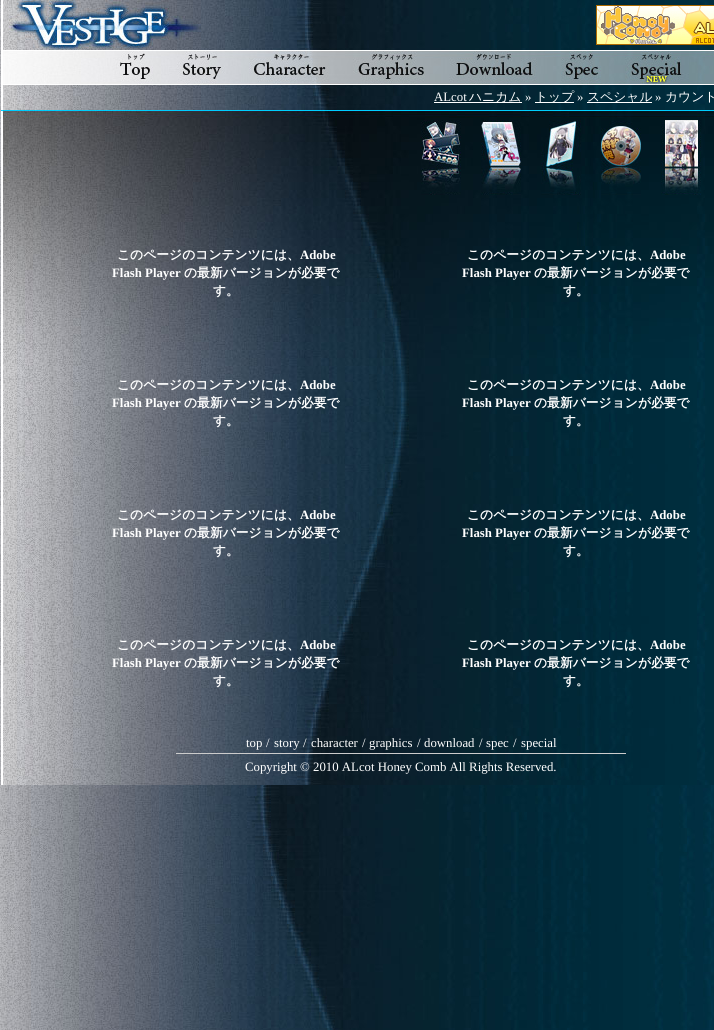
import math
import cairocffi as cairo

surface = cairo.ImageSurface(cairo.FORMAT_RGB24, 714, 1030)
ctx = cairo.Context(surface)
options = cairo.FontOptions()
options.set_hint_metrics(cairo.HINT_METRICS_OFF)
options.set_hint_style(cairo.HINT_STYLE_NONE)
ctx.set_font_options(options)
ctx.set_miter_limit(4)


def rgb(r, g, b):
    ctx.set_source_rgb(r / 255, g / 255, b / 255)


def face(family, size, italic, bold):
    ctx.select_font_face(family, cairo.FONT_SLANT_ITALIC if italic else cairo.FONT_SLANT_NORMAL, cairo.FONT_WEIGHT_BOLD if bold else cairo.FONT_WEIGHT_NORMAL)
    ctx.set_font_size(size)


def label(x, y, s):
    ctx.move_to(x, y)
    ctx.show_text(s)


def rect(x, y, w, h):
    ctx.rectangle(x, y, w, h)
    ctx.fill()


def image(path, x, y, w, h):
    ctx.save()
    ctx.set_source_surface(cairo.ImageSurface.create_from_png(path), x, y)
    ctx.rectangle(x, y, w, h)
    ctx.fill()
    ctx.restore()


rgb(255, 255, 255)
ctx.paint()
image('image0.png', 0, 0, 714, 1030)
image('image1.png', 1, 0, 713, 785)
image('image2.png', 5, 0, 196, 50)
image('image3.png', 596, 5, 118, 40)
image('image4.png', 1, 50, 713, 35)
image('image5.png', 101, 50, 65, 35)
image('image6.png', 166, 50, 71, 35)
image('image7.png', 237, 50, 104, 35)
image('image8.png', 341, 50, 100, 35)
image('image9.png', 441, 50, 108, 35)
image('image10.png', 549, 50, 65, 35)
image('image11.png', 614, 50, 87, 35)
face('Liberation Serif', 12.8, 0, 0)
rgb(255, 255, 255)
label(434, 101, 'ALcot')
rect(434, 102, 88, 1)
face('WenQuanYi Zen Hei Medium', 12.8, 0, 0)
label(469, 101, 'ハニカム')
face('Liberation Serif', 12.8, 0, 0)
label(525, 101, '»')
rect(535, 102, 39, 1)
face('WenQuanYi Zen Hei Medium', 12.8, 0, 0)
label(535, 101, 'トップ')
face('Liberation Serif', 12.8, 0, 0)
label(577, 101, '»')
rect(587, 102, 65, 1)
face('WenQuanYi Zen Hei Medium', 12.8, 0, 0)
label(587, 101, 'スペシャル')
face('Liberation Serif', 12.8, 0, 0)
label(655, 101, '»')
face('WenQuanYi Zen Hei Medium', 12.8, 0, 0)
label(665, 101, 'カウント')
image('image12.png', 1, 110, 713, 320)
image('image13.png', 421, 120, 40, 75)
image('image14.png', 481, 120, 40, 75)
image('image15.png', 541, 120, 40, 75)
image('image16.png', 601, 121, 40, 74)
image('image17.png', 661, 120, 40, 75)
face('WenQuanYi Zen Hei', 12.8, 0, 1)
label(117, 259, 'このページのコンテンツには、')
face('Liberation Serif', 12.8, 0, 1)
label(300, 259, 'Adobe')
label(112, 277, 'Flash Player')
face('WenQuanYi Zen Hei', 12.8, 0, 1)
label(184, 277, 'の最新バージョンが必要で')
label(213, 295, 'す。')
label(467, 259, 'このページのコンテンツには、')
face('Liberation Serif', 12.8, 0, 1)
label(650, 259, 'Adobe')
label(462, 277, 'Flash Player')
face('WenQuanYi Zen Hei', 12.8, 0, 1)
label(534, 277, 'の最新バージョンが必要で')
label(563, 295, 'す。')
label(117, 389, 'このページのコンテンツには、')
face('Liberation Serif', 12.8, 0, 1)
label(300, 389, 'Adobe')
label(112, 407, 'Flash Player')
face('WenQuanYi Zen Hei', 12.8, 0, 1)
label(184, 407, 'の最新バージョンが必要で')
label(213, 425, 'す。')
label(467, 389, 'このページのコンテンツには、')
face('Liberation Serif', 12.8, 0, 1)
label(650, 389, 'Adobe')
label(462, 407, 'Flash Player')
face('WenQuanYi Zen Hei', 12.8, 0, 1)
label(534, 407, 'の最新バージョンが必要で')
label(563, 425, 'す。')
label(117, 519, 'このページのコンテンツには、')
face('Liberation Serif', 12.8, 0, 1)
label(300, 519, 'Adobe')
label(112, 537, 'Flash Player')
face('WenQuanYi Zen Hei', 12.8, 0, 1)
label(184, 537, 'の最新バージョンが必要で')
label(213, 555, 'す。')
label(467, 519, 'このページのコンテンツには、')
face('Liberation Serif', 12.8, 0, 1)
label(650, 519, 'Adobe')
label(462, 537, 'Flash Player')
face('WenQuanYi Zen Hei', 12.8, 0, 1)
label(534, 537, 'の最新バージョンが必要で')
label(563, 555, 'す。')
label(117, 649, 'このページのコンテンツには、')
face('Liberation Serif', 12.8, 0, 1)
label(300, 649, 'Adobe')
label(112, 667, 'Flash Player')
face('WenQuanYi Zen Hei', 12.8, 0, 1)
label(184, 667, 'の最新バージョンが必要で')
label(213, 685, 'す。')
label(467, 649, 'このページのコンテンツには、')
face('Liberation Serif', 12.8, 0, 1)
label(650, 649, 'Adobe')
label(462, 667, 'Flash Player')
face('WenQuanYi Zen Hei', 12.8, 0, 1)
label(534, 667, 'の最新バージョンが必要で')
label(563, 685, 'す。')
face('Liberation Serif', 12.8, 0, 0)
label(246, 747, 'top')
label(266, 747, '/')
label(274, 747, 'story')
label(303, 747, '/')
label(311, 747, 'character')
label(362, 747, '/')
label(369, 747, 'graphics')
label(417, 747, '/')
label(424, 747, 'download')
label(479, 747, '/')
label(486, 747, 'spec')
label(513, 747, '/')
label(521, 747, 'special')
rgb(204, 204, 204)
rect(176, 753, 450, 1)
rgb(255, 255, 255)
label(245, 771, 'Copyright © 2010 ALcot Honey Comb All Rights Reserved.')
surface.write_to_png('render.png')
